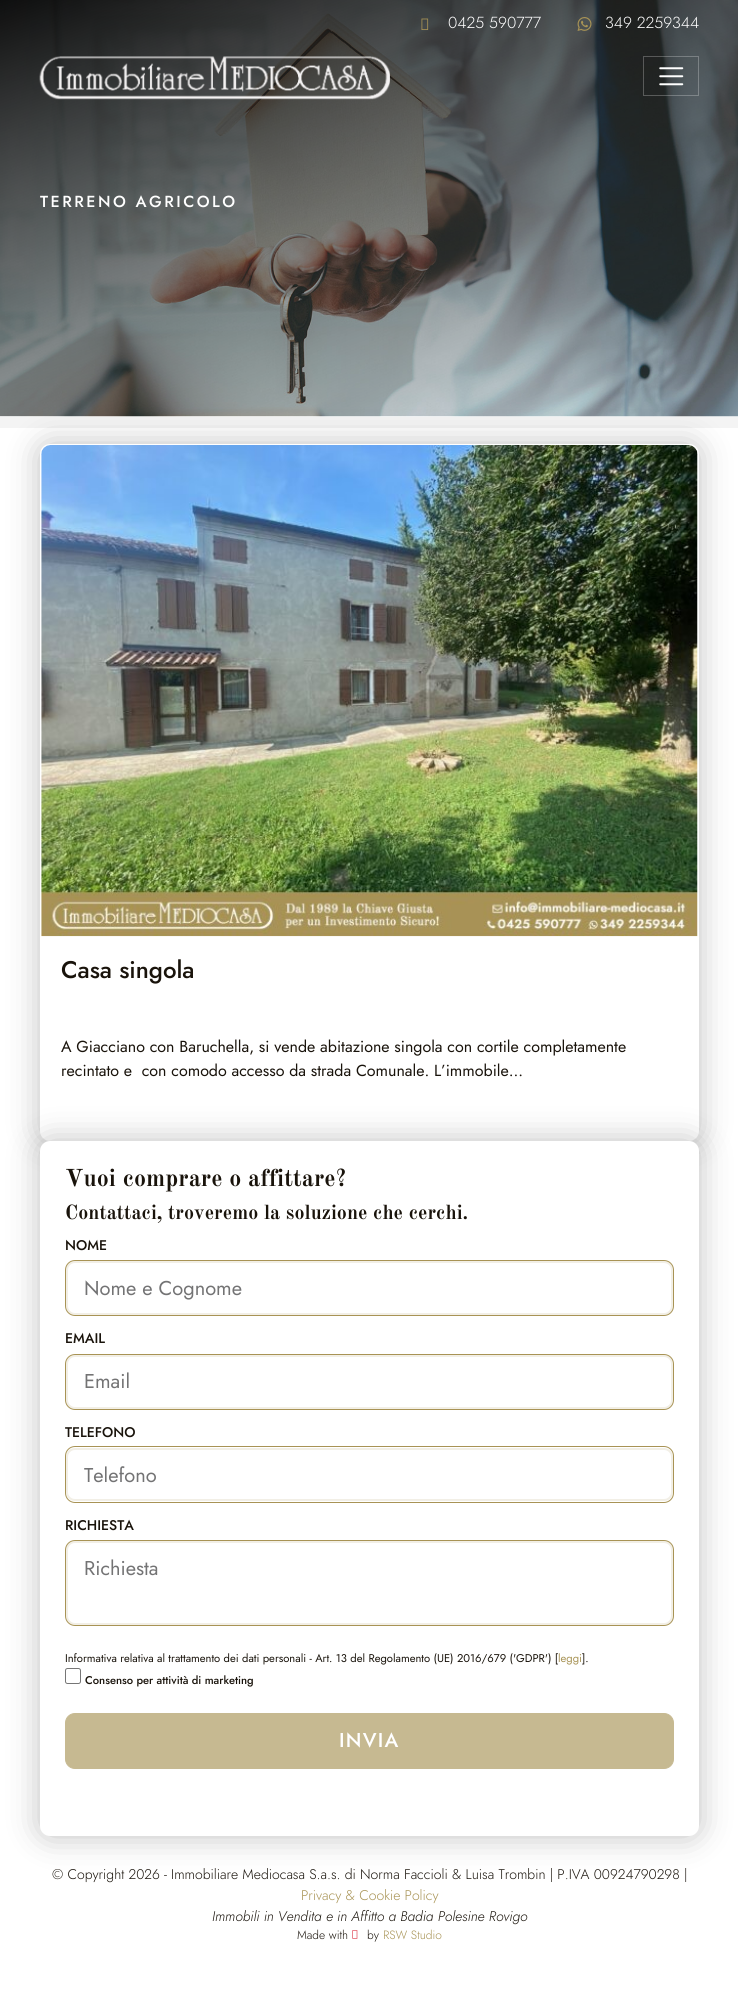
import math
import cairocffi as cairo

surface = cairo.ImageSurface(cairo.FORMAT_RGB24, 738, 1996)
ctx = cairo.Context(surface)
options = cairo.FontOptions()
options.set_hint_metrics(cairo.HINT_METRICS_OFF)
options.set_hint_style(cairo.HINT_STYLE_NONE)
ctx.set_font_options(options)
ctx.set_miter_limit(4)


def rgb(r, g, b):
    ctx.set_source_rgb(r / 255, g / 255, b / 255)


def face(family, size, italic, bold):
    ctx.select_font_face(family, cairo.FONT_SLANT_ITALIC if italic else cairo.FONT_SLANT_NORMAL, cairo.FONT_WEIGHT_BOLD if bold else cairo.FONT_WEIGHT_NORMAL)
    ctx.set_font_size(size)


def label(x, y, s):
    ctx.move_to(x, y)
    ctx.show_text(s)


def tracked(x, y, s, letter, word):
    ctx.move_to(x, y)
    for ch in s:
        ctx.show_text(ch)
        ctx.rel_move_to(letter + word * (ch == ' '), 0)


def rect(x, y, w, h):
    ctx.rectangle(x, y, w, h)
    ctx.fill()


def rrect(x, y, w, h, r):
    ctx.new_sub_path()
    for i, (u, v) in enumerate([(x + w - r, y + h - r), (x + r, y + h - r), (x + r, y + r), (x + w - r, y + r)]):
        ctx.arc(u, v, r, i * math.pi / 2, (i + 1) * math.pi / 2)
    ctx.close_path()


def soft_shadow(x, y, w, h, r, blur, alpha):
    ctx.push_group_with_content(cairo.CONTENT_ALPHA)
    ctx.set_operator(cairo.OPERATOR_SOURCE)
    for i in range(15, -16, -2):
        e = blur * i / 6
        if min(w, h) + 2 * e > 0:
            ctx.set_source_rgba(0, 0, 0, alpha * math.erfc((i - 1) / 8.5) / 2)
            rrect(x - e, y - e, w + 2 * e, h + 2 * e, max(0, min(r + e + blur * .6, min(w, h) / 2 + e)))
            ctx.fill()
    ctx.mask(ctx.pop_group())


def image(path, x, y, w, h):
    ctx.save()
    ctx.set_source_surface(cairo.ImageSurface.create_from_png(path), x, y)
    ctx.rectangle(x, y, w, h)
    ctx.fill()
    ctx.restore()


rgb(255, 255, 255)
ctx.paint()
rgb(244, 244, 244)
rect(0, 416, 738, 12)
image('image4.png', 0, 0, 738, 417)
image('image0.png', 421, 18, 8, 12)
face('Jost Light', 16, 0, 0)
rgb(255, 255, 255)
label(448, 28, '0425 590777')
image('image1.png', 577, 17, 15, 14)
label(605, 28, '349 2259344')
image('image2.png', 39, 56, 351, 44)
ctx.rectangle(643.5, 56.5, 55, 39)
ctx.set_source_rgba(1, 1, 1, 0.25)
ctx.set_line_width(1)
ctx.stroke()
image('image3.png', 659, 67, 25, 19)
face('Jost Medium', 16, 0, 0)
rgb(255, 255, 255)
tracked(40, 207, 'TERRENO AGRICOLO', 2.5, 0)
rgb(0, 0, 0)
soft_shadow(40, 444, 659, 697, 10, 16, 0.25)
rgb(255, 255, 255)
rrect(40, 444, 659, 697, 10)
ctx.fill()
image('image5.png', 41, 445, 657, 492)
face('Jost Medium', 24, 0, 0)
rgb(25, 19, 11)
label(61, 978, 'Casa singola')
face('Jost', 16, 0, 0)
label(61, 1052, 'A Giacciano con Baruchella, si vende abitazione singola con cortile completamente')
label(61, 1076, 'recintato e  con comodo accesso da strada Comunale. L’immobile...')
rgb(0, 0, 0)
soft_shadow(40, 1141, 659, 695, 10, 16, 0.25)
rgb(255, 255, 255)
rrect(40, 1141, 659, 695, 10)
ctx.fill()
face('Old Standard TT', 24, 0, 1)
rgb(25, 19, 11)
label(65, 1186, 'Vuoi comprare o affittare?')
face('Old Standard TT', 20, 0, 1)
label(65, 1219, 'Contattaci, troveremo la soluzione che cerchi.')
face('Jost Medium', 14, 0, 0)
label(65, 1250, 'NOME')
rrect(67, 1262, 605, 52, 8)
rgb(242, 239, 230)
ctx.set_line_width(2)
ctx.stroke()
rrect(65.5, 1260.5, 608, 55, 9.5)
rgb(168, 147, 85)
ctx.set_line_width(1)
ctx.stroke()
face('Jost', 20, 0, 0)
rgb(115, 115, 116)
label(84, 1295, 'Nome e Cognome')
face('Jost Medium', 14, 0, 0)
rgb(25, 19, 11)
label(65, 1343, 'EMAIL')
rrect(67, 1356, 605, 52, 8)
rgb(242, 239, 230)
ctx.set_line_width(2)
ctx.stroke()
rrect(65.5, 1354.5, 608, 55, 9.5)
rgb(168, 147, 85)
ctx.set_line_width(1)
ctx.stroke()
face('Jost', 20, 0, 0)
rgb(115, 115, 116)
label(84, 1388, 'Email')
face('Jost Medium', 14, 0, 0)
rgb(25, 19, 11)
label(65, 1437, 'TELEFONO')
rrect(67, 1449, 605, 51, 8)
rgb(242, 239, 230)
ctx.set_line_width(2)
ctx.stroke()
rrect(65.5, 1446.5, 608, 56, 9.5)
rgb(168, 147, 85)
ctx.set_line_width(1)
ctx.stroke()
face('Jost', 20, 0, 0)
rgb(115, 115, 116)
label(84, 1482, 'Telefono')
face('Jost Medium', 14, 0, 0)
rgb(25, 19, 11)
label(65, 1530, 'RICHIESTA')
rrect(67, 1542, 605, 82, 8)
rgb(242, 239, 230)
ctx.set_line_width(2)
ctx.stroke()
rrect(65.5, 1540.5, 608, 85, 9.5)
rgb(168, 147, 85)
ctx.set_line_width(1)
ctx.stroke()
face('Jost', 20, 0, 0)
rgb(115, 115, 116)
label(84, 1575, 'Richiesta')
face('Jost', 11.2, 0, 0)
rgb(25, 19, 11)
label(65, 1662, 'Informativa relativa al trattamento dei dati personali - Art. 13 del Regolamento (UE) 2016/679 (\'GDPR\') [')
rgb(168, 147, 85)
label(558, 1662, 'leggi')
rgb(25, 19, 11)
label(582, 1662, '].')
rrect(65.5, 1668.5, 15, 15, 2)
rgb(118, 118, 118)
ctx.stroke()
face('Jost Medium', 11.2, 0, 0)
rgb(25, 19, 11)
label(85, 1684, 'Consenso per attività di marketing')
rgb(198, 185, 145)
rrect(65.5, 1713.5, 608, 55, 9.5)
ctx.fill_preserve()
ctx.stroke()
face('Jost Medium', 20, 0, 0)
rgb(255, 255, 255)
tracked(339, 1747, 'INVIA', 1.25, 0)
face('Jost Light', 14, 0, 0)
rgb(25, 19, 11)
label(52, 1879, '© Copyright 2026 - Immobiliare Mediocasa S.a.s. di Norma Faccioli & Luisa Trombin | P.IVA 00924790298 |')
rgb(168, 147, 85)
label(301, 1900, 'Privacy & Cookie Policy')
face('Jost Light', 14, 1, 0)
rgb(25, 19, 11)
label(212, 1921, 'Immobili in Vendita e in Affitto a Badia Polesine Rovigo')
face('Jost Light', 12, 0, 0)
label(297, 1939, 'Made with')
image('image6.png', 352, 1930, 6, 9)
label(367, 1939, 'by')
rgb(168, 147, 85)
label(383, 1939, 'RSW Studio')
surface.write_to_png('render.png')
